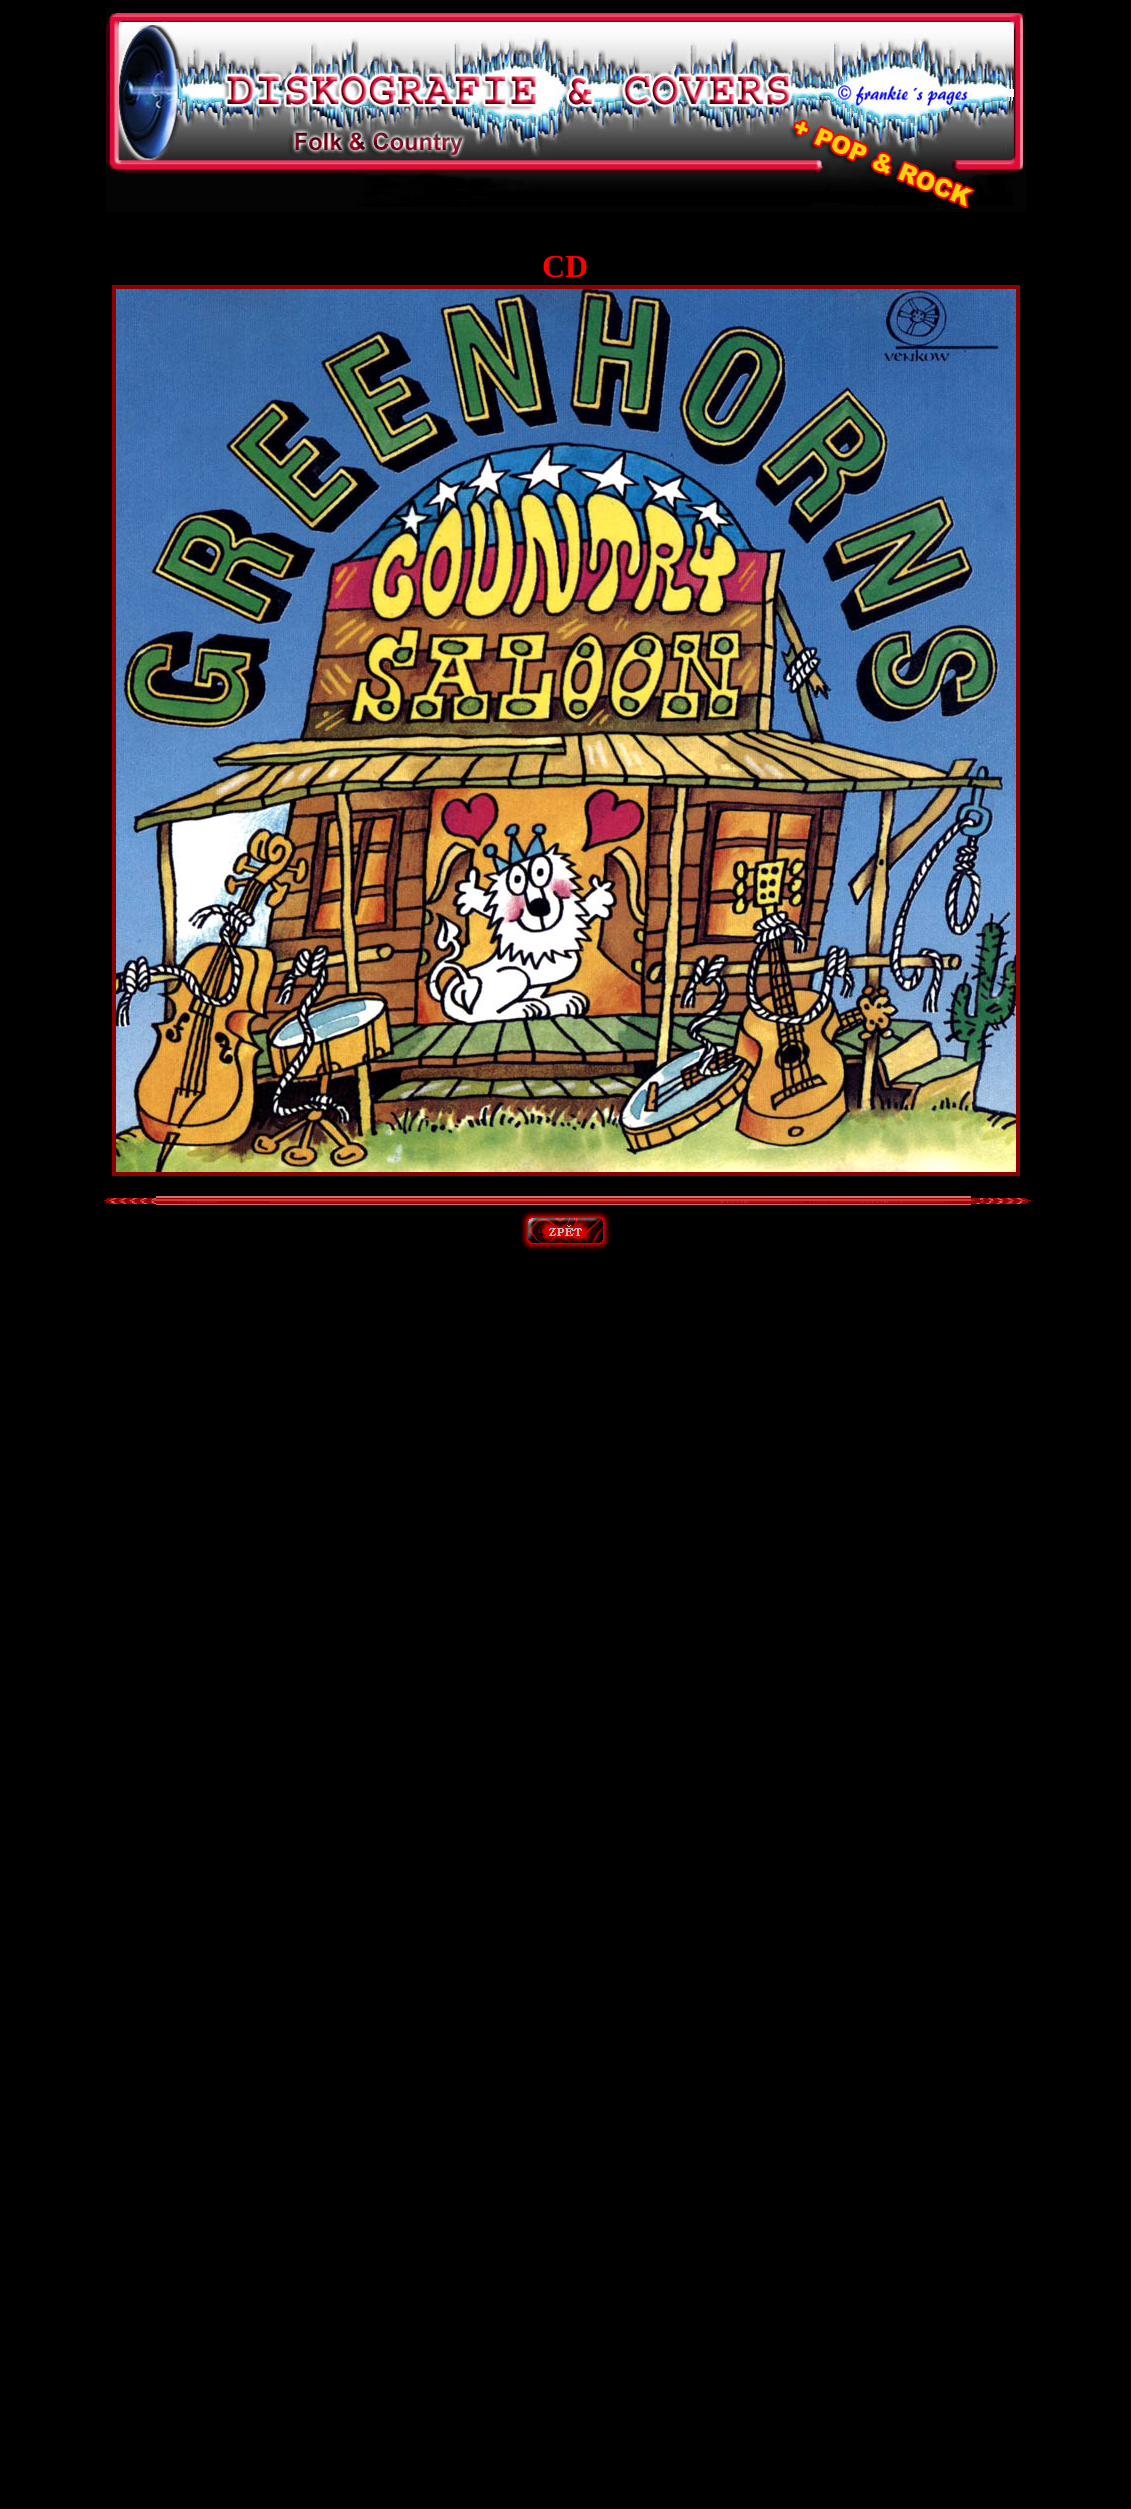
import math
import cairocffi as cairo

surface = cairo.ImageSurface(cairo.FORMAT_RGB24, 1131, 2509)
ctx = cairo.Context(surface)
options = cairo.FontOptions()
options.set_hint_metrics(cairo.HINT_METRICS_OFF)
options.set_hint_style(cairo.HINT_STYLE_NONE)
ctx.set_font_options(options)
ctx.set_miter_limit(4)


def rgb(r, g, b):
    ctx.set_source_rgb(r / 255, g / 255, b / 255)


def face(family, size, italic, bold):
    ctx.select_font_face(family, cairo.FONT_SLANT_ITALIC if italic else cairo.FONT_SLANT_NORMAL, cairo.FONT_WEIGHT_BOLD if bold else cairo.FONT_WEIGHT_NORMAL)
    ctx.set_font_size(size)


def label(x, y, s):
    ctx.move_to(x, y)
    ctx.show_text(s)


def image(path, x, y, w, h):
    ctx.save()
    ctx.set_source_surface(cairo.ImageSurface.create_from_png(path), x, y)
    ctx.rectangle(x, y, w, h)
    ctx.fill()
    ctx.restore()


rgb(0, 0, 0)
ctx.paint()
image('image0.png', 106, 8, 920, 204)
face('Liberation Serif', 32, 0, 1)
rgb(255, 0, 0)
label(542, 277, 'CD')
ctx.rectangle(114, 287, 904, 887)
rgb(139, 0, 0)
ctx.set_line_width(4)
ctx.stroke()
image('image1.png', 116, 289, 900, 883)
image('image2.png', 104, 1196, 927, 9)
image('image3.png', 520, 1210, 91, 41)
surface.write_to_png('render.png')
